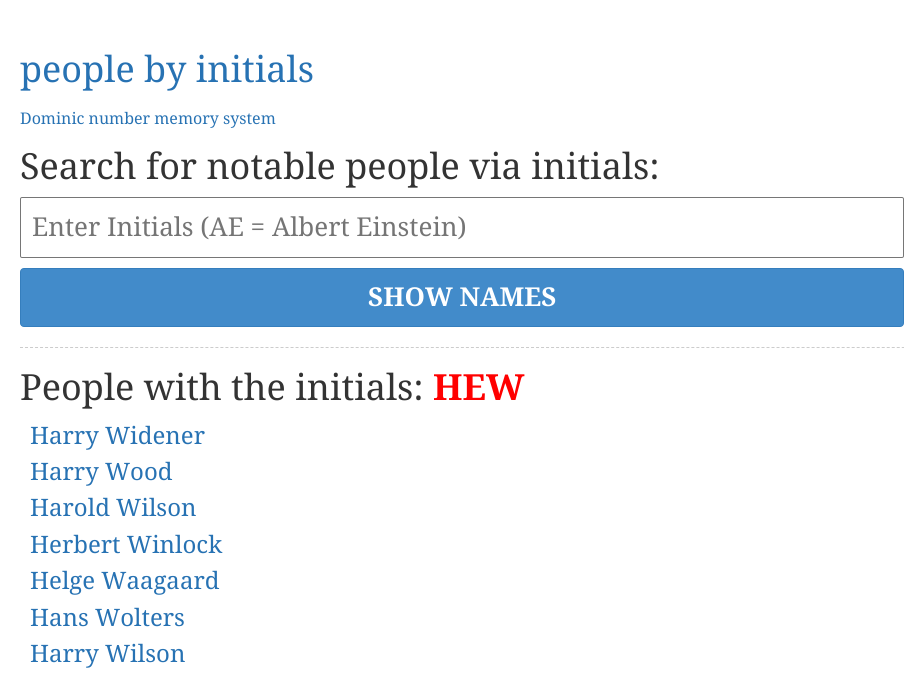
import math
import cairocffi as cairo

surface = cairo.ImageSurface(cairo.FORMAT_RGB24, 924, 678)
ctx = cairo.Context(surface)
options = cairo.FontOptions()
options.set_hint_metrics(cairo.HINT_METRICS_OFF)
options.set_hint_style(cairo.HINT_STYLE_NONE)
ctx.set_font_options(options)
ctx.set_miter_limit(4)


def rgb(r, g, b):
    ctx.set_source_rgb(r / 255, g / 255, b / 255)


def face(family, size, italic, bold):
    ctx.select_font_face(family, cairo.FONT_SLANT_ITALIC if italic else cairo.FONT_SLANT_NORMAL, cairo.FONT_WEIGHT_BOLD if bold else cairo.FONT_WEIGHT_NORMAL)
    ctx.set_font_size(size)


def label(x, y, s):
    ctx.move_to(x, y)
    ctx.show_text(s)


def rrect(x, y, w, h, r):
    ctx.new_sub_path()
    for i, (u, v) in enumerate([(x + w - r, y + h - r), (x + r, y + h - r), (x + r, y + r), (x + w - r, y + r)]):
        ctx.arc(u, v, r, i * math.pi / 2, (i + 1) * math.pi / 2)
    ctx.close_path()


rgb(255, 255, 255)
ctx.paint()
face('Droid Serif', 36, 0, 0)
rgb(39, 114, 179)
label(20, 82, 'people by initials')
face('Droid Serif', 16, 0, 0)
label(20, 124, 'Dominic number memory system')
face('Droid Serif', 36, 0, 0)
rgb(51, 51, 51)
label(20, 179, 'Search for notable people via initials:')
ctx.new_path()
ctx.move_to(20, 347.5)
ctx.line_to(904, 347.5)
rgb(204, 204, 204)
ctx.set_line_width(1)
ctx.set_dash([3, 2.01])
ctx.stroke()
rrect(20.5, 197.5, 883, 60, 1.5)
rgb(118, 118, 118)
ctx.set_dash([])
ctx.stroke()
face('Droid Serif', 26, 0, 0)
rgb(117, 117, 117)
label(32, 236, 'Enter Initials (AE = Albert Einstein)')
rgb(66, 139, 202)
rrect(20.5, 268.5, 883, 58, 3.5)
ctx.fill_preserve()
rgb(53, 126, 189)
ctx.stroke()
face('Droid Serif', 26, 0, 1)
rgb(255, 255, 255)
label(368, 306, 'SHOW NAMES')
face('Droid Serif', 36, 0, 0)
rgb(51, 51, 51)
label(20, 400, 'People with the initials:')
face('Droid Serif', 36, 0, 1)
rgb(255, 0, 0)
label(433, 400, 'HEW')
face('Droid Serif', 24, 0, 0)
rgb(39, 114, 179)
label(30, 444, 'Harry Widener')
label(30, 480, 'Harry Wood')
label(30, 516, 'Harold Wilson')
label(30, 553, 'Herbert Winlock')
label(30, 589, 'Helge Waagaard')
label(30, 626, 'Hans Wolters')
label(30, 662, 'Harry Wilson')
surface.write_to_png('render.png')
